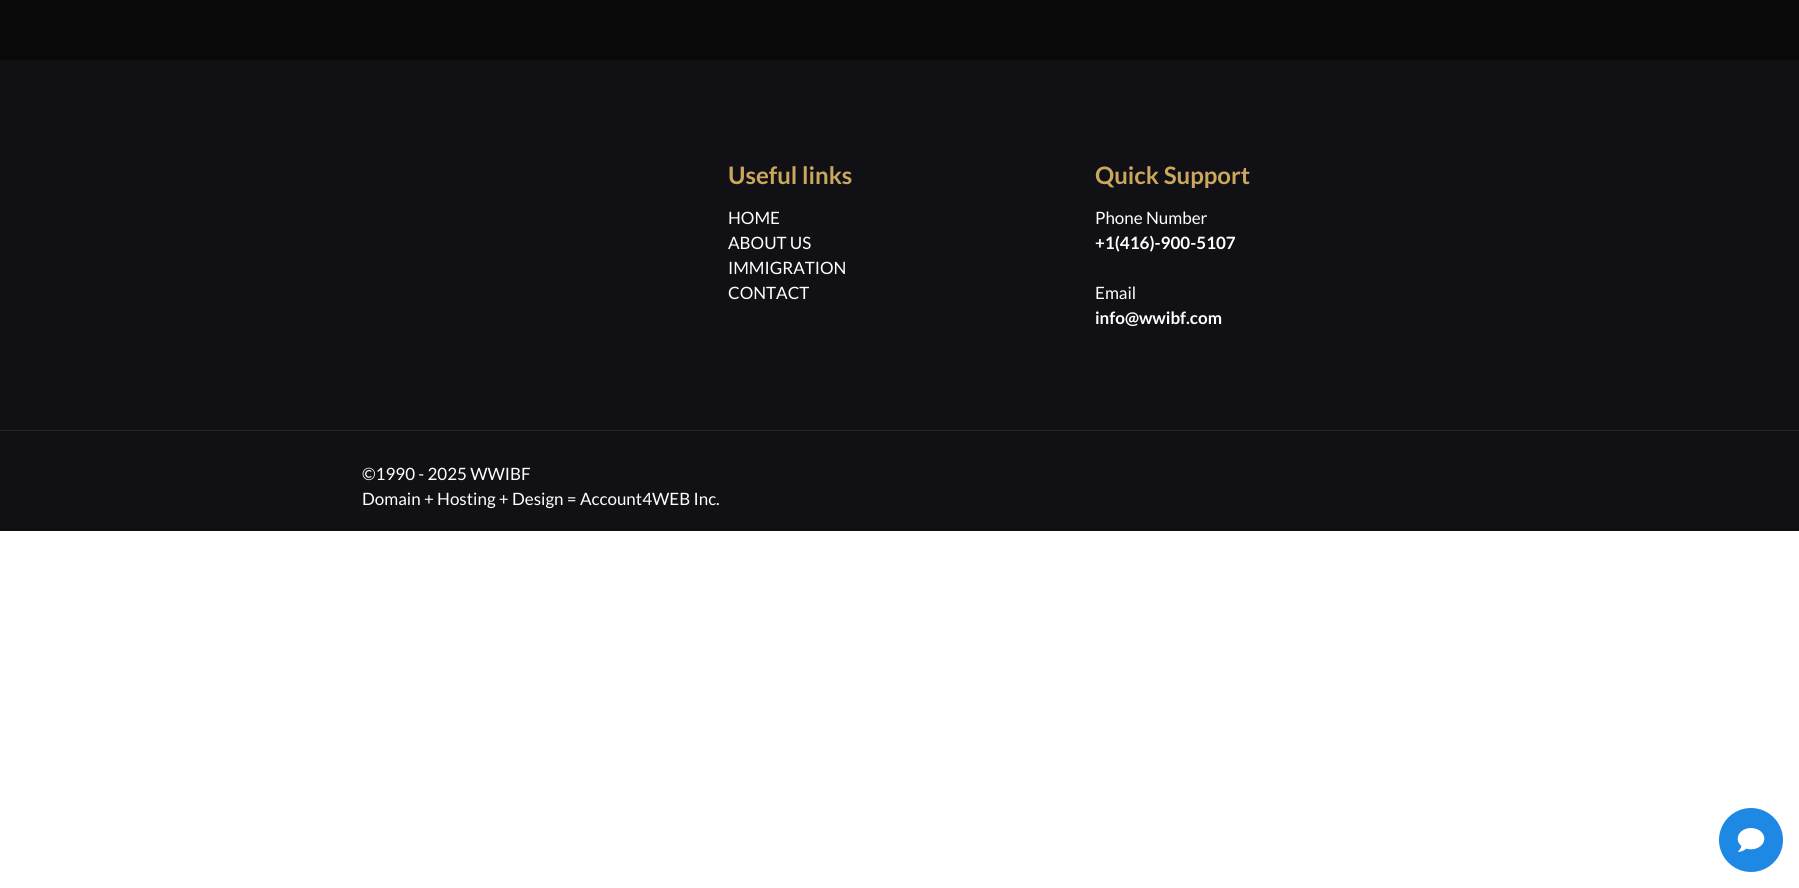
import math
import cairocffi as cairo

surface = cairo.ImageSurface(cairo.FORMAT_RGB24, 1799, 888)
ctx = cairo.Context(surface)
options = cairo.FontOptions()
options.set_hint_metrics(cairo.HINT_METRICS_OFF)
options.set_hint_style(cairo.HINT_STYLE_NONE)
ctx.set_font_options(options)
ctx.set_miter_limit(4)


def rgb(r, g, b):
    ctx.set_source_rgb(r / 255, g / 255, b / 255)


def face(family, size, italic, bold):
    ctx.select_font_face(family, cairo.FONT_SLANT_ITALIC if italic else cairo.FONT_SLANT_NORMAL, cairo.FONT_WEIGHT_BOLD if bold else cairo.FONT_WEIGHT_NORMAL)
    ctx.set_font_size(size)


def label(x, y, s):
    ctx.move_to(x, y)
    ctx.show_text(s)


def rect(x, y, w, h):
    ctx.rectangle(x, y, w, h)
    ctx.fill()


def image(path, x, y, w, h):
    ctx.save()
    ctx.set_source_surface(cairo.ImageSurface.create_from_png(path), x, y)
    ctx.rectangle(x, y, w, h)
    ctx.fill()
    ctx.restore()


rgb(255, 255, 255)
ctx.paint()
rgb(9, 9, 9)
rect(0, 0, 1799, 60)
rgb(16, 16, 21)
rect(0, 60, 1799, 471)
face('Lato', 24, 0, 1)
rgb(202, 167, 93)
label(728, 184, 'Useful links')
face('Lato', 17, 0, 0)
rgb(255, 255, 255)
label(728, 224, 'HOME')
label(728, 249, 'ABOUT US')
label(728, 274, 'IMMIGRATION')
label(728, 299, 'CONTACT')
face('Lato', 24, 0, 1)
rgb(202, 167, 93)
label(1095, 184, 'Quick Support')
face('Lato', 17, 0, 0)
rgb(255, 255, 255)
label(1095, 224, 'Phone Number')
face('Lato', 17, 0, 1)
label(1095, 249, '+1(416)-900-5107')
face('Lato', 17, 0, 0)
label(1095, 299, 'Email')
face('Lato', 17, 0, 1)
label(1095, 324, 'info@wwibf.com')
rgb(40, 40, 44)
rect(0, 430, 1799, 1)
face('Lato', 17, 0, 0)
rgb(255, 255, 255)
label(362, 480, '©1990 - 2025 WWIBF')
label(362, 505, 'Domain + Hosting + Design = Account4WEB Inc.')
rgb(30, 136, 229)
ctx.new_path()
ctx.arc(1751, 840, 32, 0, 2 * math.pi)
ctx.fill()
image('image0.png', 1737, 828, 28, 24)
surface.write_to_png('render.png')
